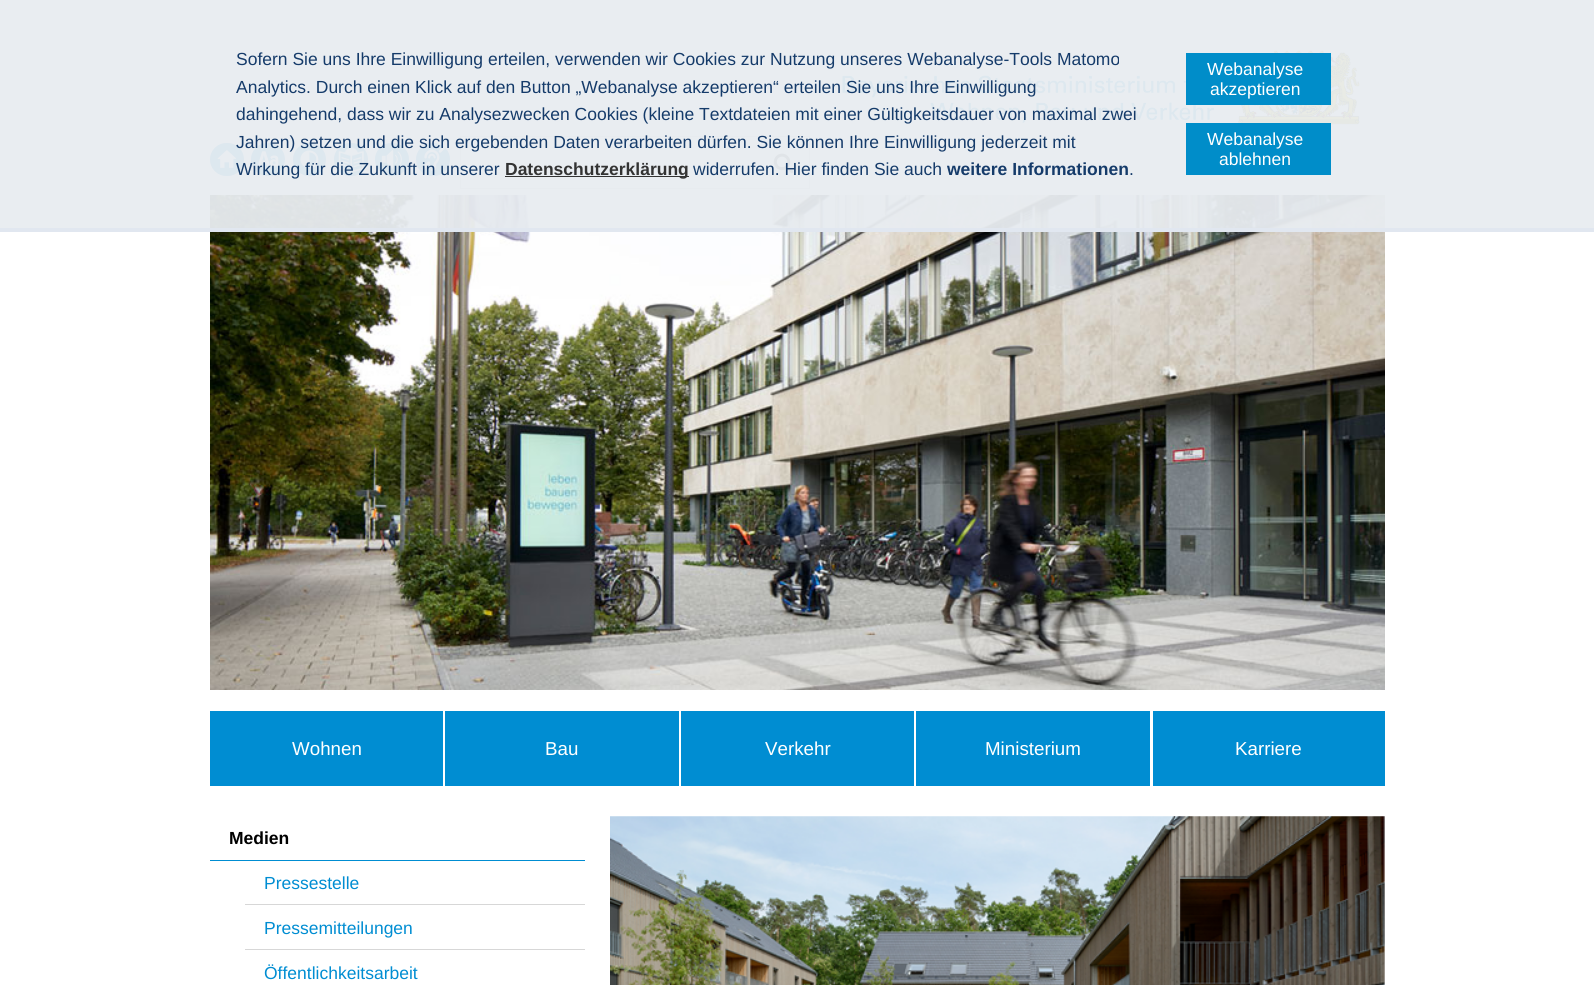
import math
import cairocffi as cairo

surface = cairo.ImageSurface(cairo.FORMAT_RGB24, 1594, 985)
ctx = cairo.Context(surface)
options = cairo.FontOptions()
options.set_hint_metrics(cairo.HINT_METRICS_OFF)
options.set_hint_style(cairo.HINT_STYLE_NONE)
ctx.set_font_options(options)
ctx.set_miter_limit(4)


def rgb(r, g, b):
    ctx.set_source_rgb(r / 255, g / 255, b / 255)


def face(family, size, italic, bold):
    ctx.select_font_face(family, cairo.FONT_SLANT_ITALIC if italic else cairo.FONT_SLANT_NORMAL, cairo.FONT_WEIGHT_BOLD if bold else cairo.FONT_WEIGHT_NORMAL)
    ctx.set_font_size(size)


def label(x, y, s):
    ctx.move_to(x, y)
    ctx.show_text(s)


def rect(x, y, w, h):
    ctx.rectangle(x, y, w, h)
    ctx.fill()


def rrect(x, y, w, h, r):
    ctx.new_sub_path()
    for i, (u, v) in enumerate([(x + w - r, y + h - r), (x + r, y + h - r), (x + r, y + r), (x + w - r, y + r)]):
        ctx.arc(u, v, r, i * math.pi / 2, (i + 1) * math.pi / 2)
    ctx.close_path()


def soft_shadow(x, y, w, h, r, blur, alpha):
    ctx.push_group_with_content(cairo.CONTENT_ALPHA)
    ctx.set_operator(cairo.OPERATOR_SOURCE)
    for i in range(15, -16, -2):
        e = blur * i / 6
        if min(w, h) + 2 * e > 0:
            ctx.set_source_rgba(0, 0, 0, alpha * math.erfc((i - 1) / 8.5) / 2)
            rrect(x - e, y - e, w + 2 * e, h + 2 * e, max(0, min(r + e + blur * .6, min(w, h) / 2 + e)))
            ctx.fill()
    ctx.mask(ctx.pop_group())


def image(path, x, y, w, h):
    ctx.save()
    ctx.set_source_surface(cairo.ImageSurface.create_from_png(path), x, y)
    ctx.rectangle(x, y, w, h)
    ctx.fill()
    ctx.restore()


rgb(255, 255, 255)
ctx.paint()
image('image0.png', 842, 50, 518, 75)
rgb(0, 141, 210)
rrect(210, 143, 34, 33, 16.5)
ctx.fill()
image('image6.png', 217, 150, 19, 18)
image('image8.png', 210, 195, 1175, 495)
rgb(255, 255, 255)
soft_shadow(251, 143, 34, 33, 16.5, 7.5, 0.7)
rgb(0, 141, 210)
rrect(251, 143, 34, 33, 16.5)
ctx.fill()
image('image1.png', 257, 151, 22, 16)
rgb(255, 255, 255)
soft_shadow(293, 143, 33, 33, 16.5, 7.5, 0.7)
rgb(0, 141, 210)
ctx.arc(309.5, 159.5, 16.5, 0, 2 * math.pi)
ctx.fill()
image('image2.png', 300, 150, 19, 19)
rgb(255, 255, 255)
soft_shadow(334, 143, 34, 33, 16.5, 7.5, 0.7)
rgb(0, 141, 210)
rrect(334, 143, 34, 33, 16.5)
ctx.fill()
image('image3.png', 338, 147, 26, 26)
rgb(255, 255, 255)
soft_shadow(375, 143, 34, 33, 16.5, 7.5, 0.7)
rgb(0, 141, 210)
rrect(375, 143, 34, 33, 16.5)
ctx.fill()
image('image4.png', 381, 150, 21, 19)
rrect(416, 143, 34, 33, 16.5)
ctx.fill()
image('image5.png', 421, 146, 24, 26)
ctx.rectangle(460.5, 136.5, 349, 52)
rgb(215, 215, 215)
ctx.set_line_width(1)
ctx.stroke()
image('image7.png', 773, 153, 21, 21)
ctx.set_source_rgba(0.91, 0.929, 0.945, 0.95)
rect(0, 0, 1594, 228)
rgb(225, 231, 240)
rect(0, 228, 1594, 4)
face('Liberation Sans', 17.5, 0, 0)
rgb(21, 59, 106)
label(236, 65, 'Sofern Sie uns Ihre Einwilligung erteilen, verwenden wir Cookies zur Nutzung unseres Webanalyse-Tools Matomo')
label(236, 93, 'Analytics. Durch einen Klick auf den Button „Webanalyse akzeptieren“ erteilen Sie uns Ihre Einwilligung')
label(236, 120, 'dahingehend, dass wir zu Analysezwecken Cookies (kleine Textdateien mit einer Gültigkeitsdauer von maximal zwei')
label(236, 148, 'Jahren) setzen und die sich ergebenden Daten verarbeiten dürfen. Sie können Ihre Einwilligung jederzeit mit')
label(236, 175, 'Wirkung für die Zukunft in unserer')
rgb(51, 51, 51)
rect(505, 176, 184, 1)
face('Liberation Sans', 17.5, 0, 1)
label(505, 175, 'Datenschutzerklärung')
face('Liberation Sans', 17.5, 0, 0)
rgb(21, 59, 106)
label(693, 175, 'widerrufen. Hier finden Sie auch')
face('Liberation Sans', 17.5, 0, 1)
label(947, 175, 'weitere Informationen')
face('Liberation Sans', 17.5, 0, 0)
label(1129, 175, '.')
rgb(0, 141, 201)
rect(1186, 53, 145, 52)
rgb(255, 255, 255)
label(1207, 75, 'Webanalyse')
label(1210, 95, 'akzeptieren')
rgb(0, 141, 201)
rect(1186, 123, 145, 52)
rgb(255, 255, 255)
label(1207, 145, 'Webanalyse')
label(1219, 165, 'ablehnen')
rgb(0, 141, 210)
rect(210, 711, 233, 75)
face('Liberation Sans', 18.75, 0, 0)
rgb(255, 255, 255)
label(292, 755, 'Wohnen')
rgb(0, 141, 210)
rect(445, 711, 234, 75)
rgb(255, 255, 255)
label(545, 755, 'Bau')
rgb(0, 141, 210)
rect(681, 711, 233, 75)
rgb(255, 255, 255)
label(765, 755, 'Verkehr')
rgb(0, 141, 210)
rect(916, 711, 234, 75)
rgb(255, 255, 255)
label(985, 755, 'Ministerium')
rgb(0, 141, 210)
rect(1153, 711, 232, 75)
rgb(255, 255, 255)
label(1235, 755, 'Karriere')
rgb(0, 141, 210)
rect(210, 860, 375, 1)
face('Liberation Sans', 17.5, 0, 1)
rgb(0, 0, 0)
label(229, 844, 'Medien')
rgb(215, 215, 215)
rect(245, 904, 340, 1)
face('Liberation Sans', 17.5, 0, 0)
rgb(0, 141, 210)
label(264, 889, 'Pressestelle')
rgb(215, 215, 215)
rect(245, 949, 340, 1)
rgb(0, 141, 210)
label(264, 934, 'Pressemitteilungen')
label(264, 979, 'Öffentlichkeitsarbeit')
image('image9.png', 610, 816, 775, 169)
surface.write_to_png('render.png')
